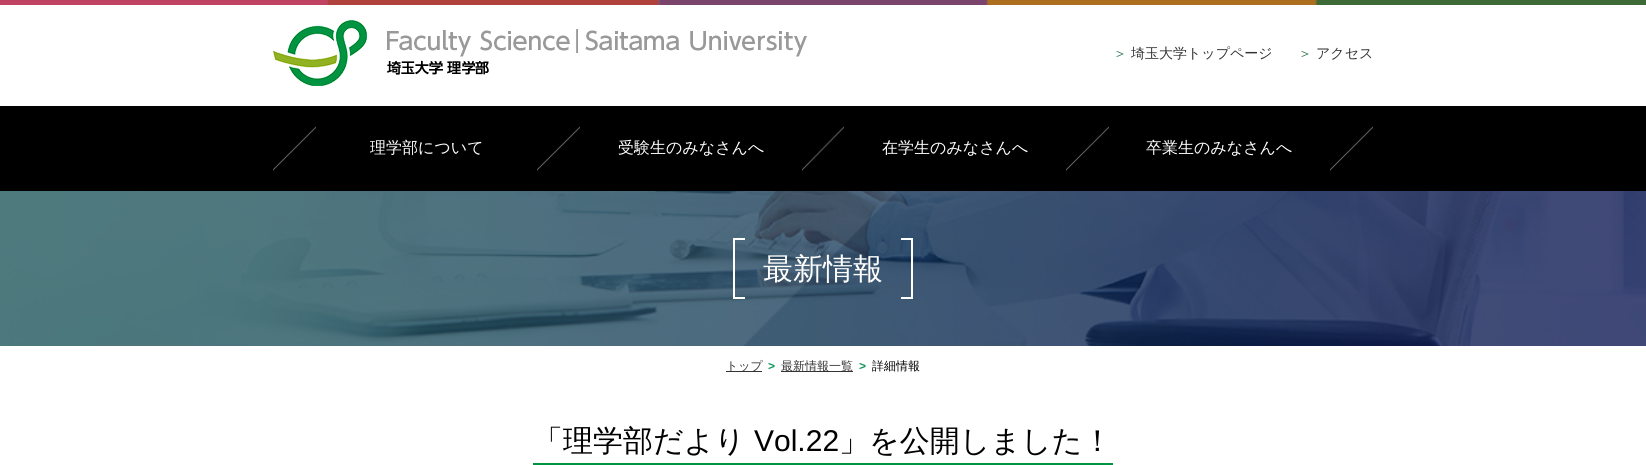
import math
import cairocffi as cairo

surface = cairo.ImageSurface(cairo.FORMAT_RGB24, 1646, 465)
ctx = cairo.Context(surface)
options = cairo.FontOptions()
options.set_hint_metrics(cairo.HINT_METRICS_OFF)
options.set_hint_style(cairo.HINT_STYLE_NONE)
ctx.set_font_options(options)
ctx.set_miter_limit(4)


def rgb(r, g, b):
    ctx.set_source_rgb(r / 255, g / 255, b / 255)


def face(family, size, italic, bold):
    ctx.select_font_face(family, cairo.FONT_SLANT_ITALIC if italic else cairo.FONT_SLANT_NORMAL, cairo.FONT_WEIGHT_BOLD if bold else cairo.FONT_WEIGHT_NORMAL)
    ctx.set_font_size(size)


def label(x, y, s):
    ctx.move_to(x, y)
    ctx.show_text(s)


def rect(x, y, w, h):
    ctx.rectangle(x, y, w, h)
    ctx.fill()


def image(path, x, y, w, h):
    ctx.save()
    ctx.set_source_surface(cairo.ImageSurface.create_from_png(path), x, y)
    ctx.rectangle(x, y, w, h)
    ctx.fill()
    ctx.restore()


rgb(255, 255, 255)
ctx.paint()
image('image0.png', 0, 0, 1646, 5)
image('image1.png', 273, 20, 534, 66)
face('WenQuanYi Zen Hei Medium', 14, 0, 0)
rgb(47, 120, 80)
label(1113, 58, '＞')
rgb(51, 51, 51)
label(1131, 58, '埼玉大学トップページ')
rgb(47, 120, 80)
label(1298, 58, '＞')
rgb(51, 51, 51)
label(1316, 58, 'アクセス')
rgb(0, 0, 0)
rect(0, 106, 1646, 85)
image('image2.png', 273, 126, 43, 45)
face('WenQuanYi Zen Hei Medium', 16, 0, 0)
rgb(255, 255, 255)
label(370, 153, '理学部について')
image('image2.png', 537, 126, 43, 45)
label(618, 153, '受験生のみなさんへ')
image('image3.png', 802, 126, 42, 45)
label(882, 153, '在学生のみなさんへ')
image('image2.png', 1066, 126, 43, 45)
label(1146, 153, '卒業生のみなさんへ')
image('image2.png', 1330, 126, 43, 45)
image('image4.png', 0, 191, 1646, 155)
image('image5.png', 733, 238, 180, 61)
face('WenQuanYi Zen Hei Medium', 30, 0, 0)
label(763, 279, '最新情報')
rgb(51, 51, 51)
rect(726, 371, 36, 1)
face('WenQuanYi Zen Hei Medium', 12, 0, 0)
label(726, 370, 'トップ')
face('Liberation Sans', 12, 0, 1)
rgb(11, 149, 82)
label(768, 370, '>')
rgb(51, 51, 51)
rect(781, 371, 72, 1)
face('WenQuanYi Zen Hei Medium', 12, 0, 0)
label(781, 370, '最新情報一覧')
face('Liberation Sans', 12, 0, 1)
rgb(11, 149, 82)
label(859, 370, '>')
face('WenQuanYi Zen Hei Medium', 12, 0, 0)
rgb(0, 0, 0)
label(872, 370, '詳細情報')
rgb(0, 148, 66)
rect(533, 463, 580, 2)
face('WenQuanYi Zen Hei Medium', 30, 0, 0)
rgb(0, 0, 0)
label(533, 451, '「理学部だより')
face('Liberation Sans', 30, 0, 0)
label(754, 451, 'Vol.22')
face('WenQuanYi Zen Hei Medium', 30, 0, 0)
label(839, 451, '」を公開しました！')
surface.write_to_png('render.png')
